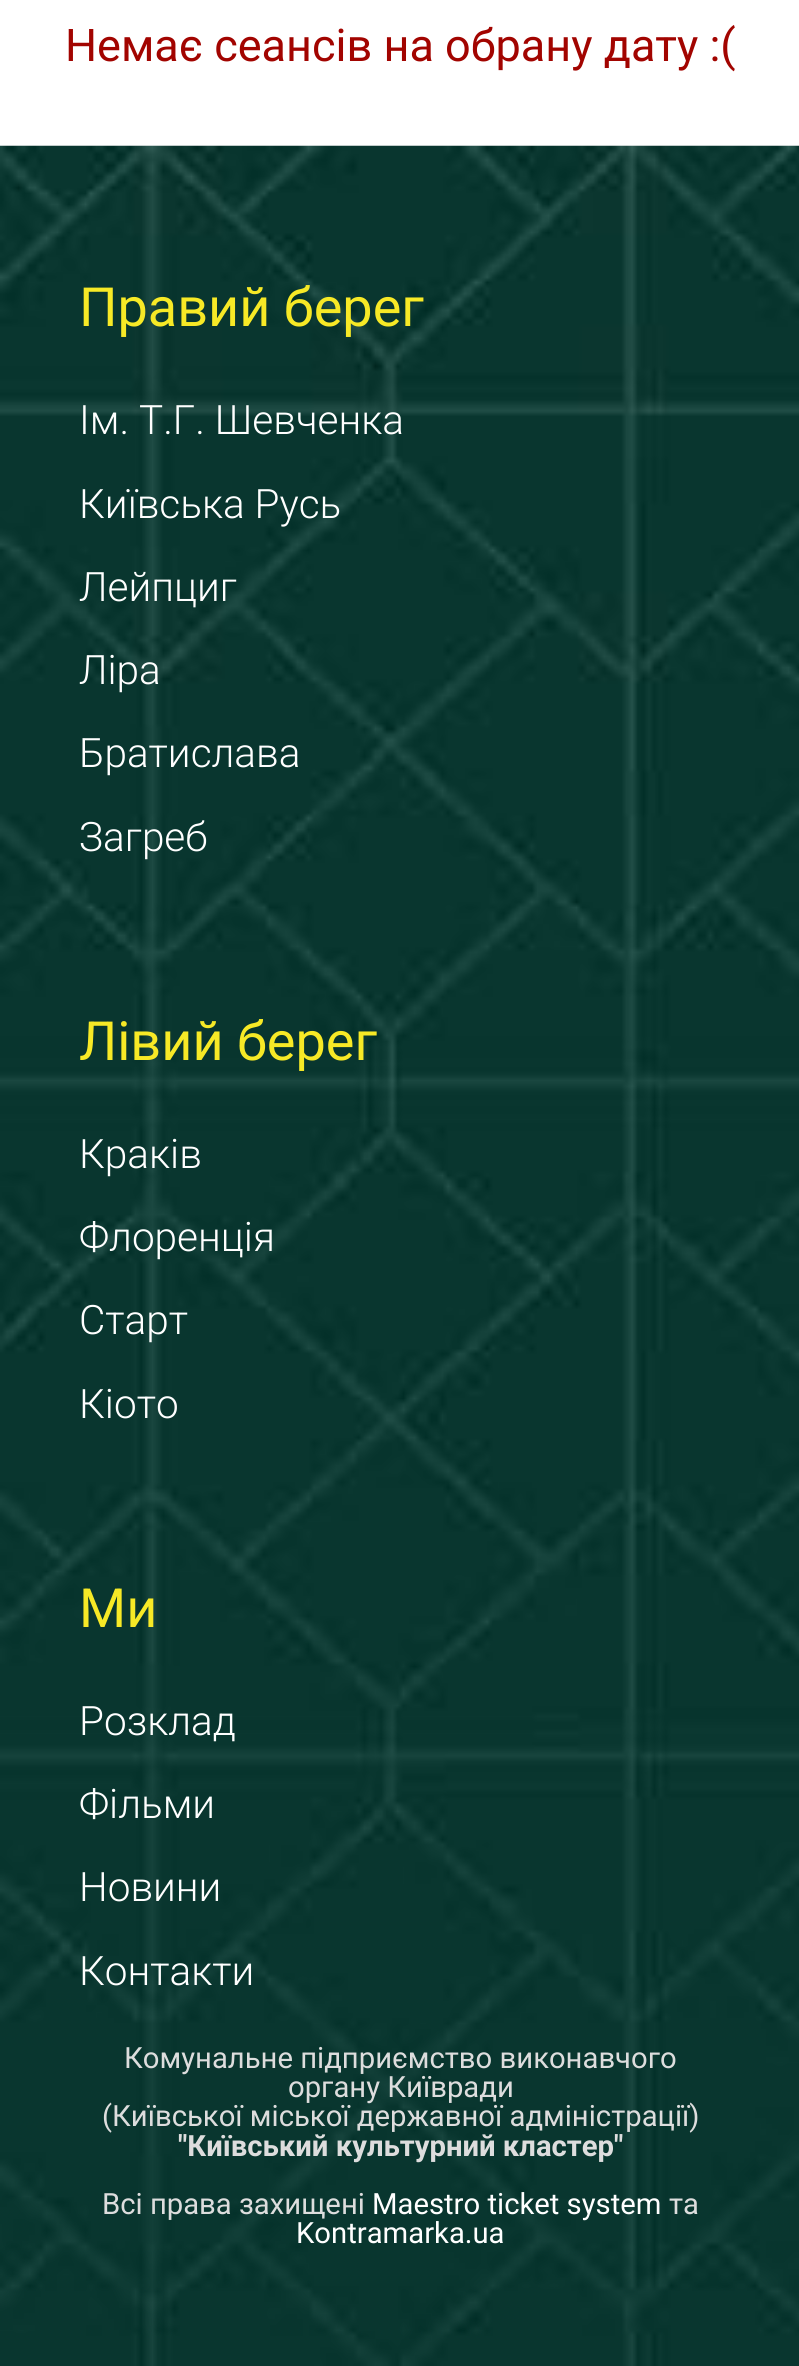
import math
import cairocffi as cairo

surface = cairo.ImageSurface(cairo.FORMAT_RGB24, 799, 2366)
ctx = cairo.Context(surface)
options = cairo.FontOptions()
options.set_hint_metrics(cairo.HINT_METRICS_OFF)
options.set_hint_style(cairo.HINT_STYLE_NONE)
ctx.set_font_options(options)
ctx.set_miter_limit(4)


def rgb(r, g, b):
    ctx.set_source_rgb(r / 255, g / 255, b / 255)


def face(family, size, italic, bold):
    ctx.select_font_face(family, cairo.FONT_SLANT_ITALIC if italic else cairo.FONT_SLANT_NORMAL, cairo.FONT_WEIGHT_BOLD if bold else cairo.FONT_WEIGHT_NORMAL)
    ctx.set_font_size(size)


def label(x, y, s):
    ctx.move_to(x, y)
    ctx.show_text(s)


def image(path, x, y, w, h):
    ctx.save()
    ctx.set_source_surface(cairo.ImageSurface.create_from_png(path), x, y)
    ctx.rectangle(x, y, w, h)
    ctx.fill()
    ctx.restore()


rgb(255, 255, 255)
ctx.paint()
face('Roboto', 45, 0, 0)
rgb(162, 4, 0)
label(65, 61, 'Немає сеансів на обрану дату :(')
image('image0.png', 0, 145, 799, 2221)
face('Roboto', 54, 0, 0)
rgb(247, 233, 38)
label(79, 326, 'Правий берег')
face('Roboto Light', 40.5, 0, 0)
rgb(255, 255, 255)
label(79, 434, 'Ім. Т.Г. Шевченка')
label(79, 518, 'Київська Русь')
label(79, 601, 'Лейпциг')
label(79, 684, 'Ліра')
label(79, 767, 'Братислава')
label(79, 851, 'Загреб')
face('Roboto', 54, 0, 0)
rgb(247, 233, 38)
label(79, 1060, 'Лівий берег')
face('Roboto Light', 40.5, 0, 0)
rgb(255, 255, 255)
label(79, 1168, 'Краків')
label(79, 1251, 'Флоренція')
label(79, 1334, 'Старт')
label(79, 1418, 'Кіото')
face('Roboto', 54, 0, 0)
rgb(247, 233, 38)
label(79, 1627, 'Ми')
face('Roboto Light', 40.5, 0, 0)
rgb(255, 255, 255)
label(79, 1735, 'Розклад')
label(79, 1818, 'Фільми')
label(79, 1901, 'Новини')
label(79, 1985, 'Контакти')
face('Roboto', 29.25, 0, 0)
rgb(221, 221, 221)
label(124, 2068, 'Комунальне підприємство виконавчого')
label(288, 2097, 'органу Київради')
label(102, 2126, '(Київської міської державної адміністрації)')
face('Roboto', 29.25, 0, 1)
label(178, 2156, '"Київський культурний кластер"')
face('Roboto', 29.25, 0, 0)
label(102, 2214, 'Всi права захищенi')
rgb(255, 255, 255)
label(372, 2214, 'Maestro ticket system')
rgb(221, 221, 221)
label(669, 2214, 'та')
rgb(255, 255, 255)
label(296, 2243, 'Kontramarka.ua')
surface.write_to_png('render.png')
